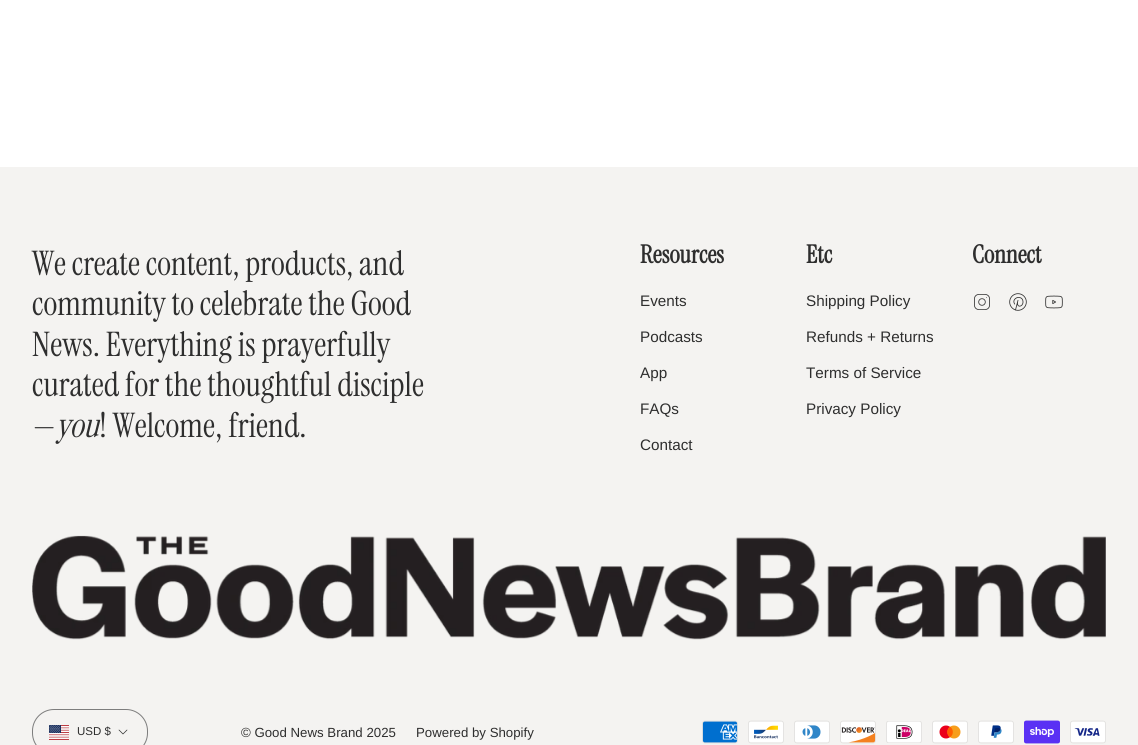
import math
import cairocffi as cairo

surface = cairo.ImageSurface(cairo.FORMAT_RGB24, 1138, 745)
ctx = cairo.Context(surface)
options = cairo.FontOptions()
options.set_hint_metrics(cairo.HINT_METRICS_OFF)
options.set_hint_style(cairo.HINT_STYLE_NONE)
ctx.set_font_options(options)
ctx.set_miter_limit(4)


def rgb(r, g, b):
    ctx.set_source_rgb(r / 255, g / 255, b / 255)


def face(family, size, italic, bold):
    ctx.select_font_face(family, cairo.FONT_SLANT_ITALIC if italic else cairo.FONT_SLANT_NORMAL, cairo.FONT_WEIGHT_BOLD if bold else cairo.FONT_WEIGHT_NORMAL)
    ctx.set_font_size(size)


def label(x, y, s):
    ctx.move_to(x, y)
    ctx.show_text(s)


def rect(x, y, w, h):
    ctx.rectangle(x, y, w, h)
    ctx.fill()


def rrect(x, y, w, h, r):
    ctx.new_sub_path()
    for i, (u, v) in enumerate([(x + w - r, y + h - r), (x + r, y + h - r), (x + r, y + r), (x + w - r, y + r)]):
        ctx.arc(u, v, r, i * math.pi / 2, (i + 1) * math.pi / 2)
    ctx.close_path()


def image(path, x, y, w, h):
    ctx.save()
    ctx.set_source_surface(cairo.ImageSurface.create_from_png(path), x, y)
    ctx.rectangle(x, y, w, h)
    ctx.fill()
    ctx.restore()


rgb(255, 255, 255)
ctx.paint()
rgb(244, 243, 241)
rect(0, 167, 1138, 578)
face('Instrument Serif', 33.75, 0, 0)
rgb(46, 46, 46)
label(32, 275, 'We create content, products, and')
label(32, 315, 'community to celebrate the Good')
label(32, 356, 'News. Everything is prayerfully')
label(32, 396, 'curated for the thoughtful disciple')
label(32, 437, '—')
face('Instrument Serif', 33.75, 1, 0)
label(56, 437, 'you')
face('Instrument Serif', 33.75, 0, 0)
label(99, 437, '! Welcome, friend.')
face('Instrument Serif', 25, 0, 1)
label(640, 263, 'Resources')
face('Liberation Sans', 15.25, 0, 0)
label(640, 306, 'Events')
label(640, 342, 'Podcasts')
label(640, 378, 'App')
label(640, 414, 'FAQs')
label(640, 450, 'Contact')
face('Instrument Serif', 25, 0, 1)
label(806, 263, 'Etc')
face('Liberation Sans', 15.25, 0, 0)
label(806, 306, 'Shipping Policy')
label(806, 342, 'Refunds + Returns')
label(806, 378, 'Terms of Service')
label(806, 414, 'Privacy Policy')
face('Instrument Serif', 25, 0, 1)
label(972, 263, 'Connect')
image('image0.png', 974, 294, 16, 16)
image('image1.png', 1009, 293, 18, 18)
image('image2.png', 1045, 295, 18, 14)
image('image3.png', 32, 535, 1074, 105)
rrect(32.5, 709.5, 115, 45, 21.5)
rgb(125, 125, 125)
ctx.set_line_width(1)
ctx.stroke()
image('image4.png', 49, 725, 20, 15)
face('Liberation Sans', 11.5, 0, 0)
rgb(46, 46, 46)
label(77, 735, 'USD $')
ctx.new_path()
ctx.move_to(119, 730)
ctx.line_to(123, 734)
ctx.line_to(127, 730)
ctx.set_line_width(0.7)
ctx.set_line_cap(cairo.LINE_CAP_ROUND)
ctx.set_line_join(cairo.LINE_JOIN_ROUND)
ctx.stroke()
face('Liberation Sans', 13.25, 0, 0)
label(241, 737, '© Good News Brand 2025')
label(416, 737, 'Powered by Shopify')
image('image5.png', 702, 720, 36, 24)
image('image6.png', 748, 720, 36, 24)
image('image7.png', 794, 720, 36, 24)
image('image8.png', 840, 720, 36, 24)
image('image9.png', 886, 721, 36, 22)
image('image10.png', 932, 720, 36, 24)
image('image11.png', 978, 720, 36, 24)
image('image12.png', 1024, 720, 36, 24)
image('image13.png', 1070, 720, 36, 24)
surface.write_to_png('render.png')
